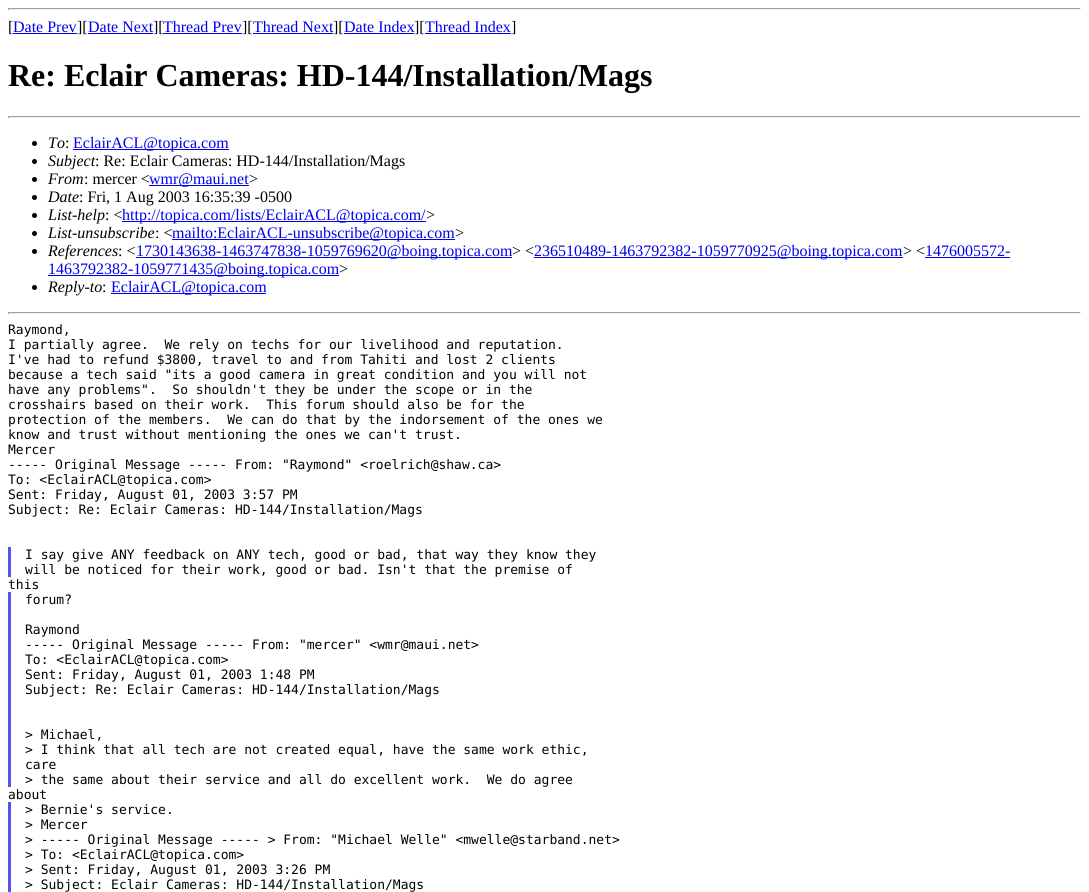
import math
import cairocffi as cairo

surface = cairo.ImageSurface(cairo.FORMAT_RGB24, 1089, 892)
ctx = cairo.Context(surface)
options = cairo.FontOptions()
options.set_hint_metrics(cairo.HINT_METRICS_OFF)
options.set_hint_style(cairo.HINT_STYLE_NONE)
ctx.set_font_options(options)
ctx.set_miter_limit(4)


def rgb(r, g, b):
    ctx.set_source_rgb(r / 255, g / 255, b / 255)


def face(family, size, italic, bold):
    ctx.select_font_face(family, cairo.FONT_SLANT_ITALIC if italic else cairo.FONT_SLANT_NORMAL, cairo.FONT_WEIGHT_BOLD if bold else cairo.FONT_WEIGHT_NORMAL)
    ctx.set_font_size(size)


def label(x, y, s):
    ctx.move_to(x, y)
    ctx.show_text(s)


def rect(x, y, w, h):
    ctx.rectangle(x, y, w, h)
    ctx.fill()


rgb(255, 255, 255)
ctx.paint()
rgb(159, 159, 159)
rect(8, 8, 1073, 1)
rgb(238, 238, 238)
rect(1080, 8, 1, 2)
rect(8, 9, 1073, 1)
rgb(159, 159, 159)
rect(8, 8, 1, 2)
face('Liberation Serif', 16, 0, 0)
rgb(0, 0, 0)
label(8, 32, '[')
rgb(0, 0, 238)
label(13, 32, 'Date Prev')
rect(13, 33, 64, 1)
rgb(0, 0, 0)
label(77, 32, '][')
rgb(0, 0, 238)
label(88, 32, 'Date Next')
rect(88, 33, 65, 1)
rgb(0, 0, 0)
label(153, 32, '][')
rgb(0, 0, 238)
label(163, 32, 'Thread Prev')
rect(163, 33, 79, 1)
rgb(0, 0, 0)
label(242, 32, '][')
rgb(0, 0, 238)
label(253, 32, 'Thread Next')
rect(253, 33, 80, 1)
rgb(0, 0, 0)
label(333, 32, '][')
rgb(0, 0, 238)
label(344, 32, 'Date Index')
rect(344, 33, 70, 1)
rgb(0, 0, 0)
label(414, 32, '][')
rgb(0, 0, 238)
label(425, 32, 'Thread Index')
rect(425, 33, 86, 1)
rgb(0, 0, 0)
label(511, 32, ']')
face('Liberation Serif', 32, 0, 1)
label(8, 86, 'Re: Eclair Cameras: HD-144/Installation/Mags')
rgb(159, 159, 159)
rect(8, 116, 1073, 1)
rgb(238, 238, 238)
rect(1080, 116, 1, 2)
rect(8, 117, 1073, 1)
rgb(159, 159, 159)
rect(8, 116, 1, 2)
rgb(0, 0, 0)
ctx.new_path()
ctx.arc(34.5, 143.5, 2.5, 0, 2 * math.pi)
ctx.fill()
face('Liberation Serif', 16, 1, 0)
label(48, 148, 'To')
face('Liberation Serif', 16, 0, 0)
label(65, 148, ':')
rgb(0, 0, 238)
rect(73, 149, 156, 1)
label(73, 148, 'EclairACL@topica.com')
rgb(0, 0, 0)
ctx.new_path()
ctx.arc(34.5, 161.5, 2.5, 0, 2 * math.pi)
ctx.fill()
face('Liberation Serif', 16, 1, 0)
label(48, 166, 'Subject')
face('Liberation Serif', 16, 0, 0)
label(95, 166, ': Re: Eclair Cameras: HD-144/Installation/Mags')
ctx.new_path()
ctx.arc(34.5, 179.5, 2.5, 0, 2 * math.pi)
ctx.fill()
face('Liberation Serif', 16, 1, 0)
label(48, 184, 'From')
face('Liberation Serif', 16, 0, 0)
label(84, 184, ': mercer <')
rgb(0, 0, 238)
rect(149, 185, 100, 1)
label(149, 184, 'wmr@maui.net')
rgb(0, 0, 0)
label(249, 184, '>')
ctx.new_path()
ctx.arc(34.5, 197.5, 2.5, 0, 2 * math.pi)
ctx.fill()
face('Liberation Serif', 16, 1, 0)
label(48, 202, 'Date')
face('Liberation Serif', 16, 0, 0)
label(79, 202, ': Fri, 1 Aug 2003 16:35:39 -0500')
ctx.new_path()
ctx.arc(34.5, 215.5, 2.5, 0, 2 * math.pi)
ctx.fill()
face('Liberation Serif', 16, 1, 0)
label(48, 220, 'List-help')
face('Liberation Serif', 16, 0, 0)
label(105, 220, ': <')
rgb(0, 0, 238)
rect(122, 221, 304, 1)
label(122, 220, 'http://topica.com/lists/EclairACL@topica.com/')
rgb(0, 0, 0)
label(426, 220, '>')
ctx.new_path()
ctx.arc(34.5, 233.5, 2.5, 0, 2 * math.pi)
ctx.fill()
face('Liberation Serif', 16, 1, 0)
label(48, 238, 'List-unsubscribe')
face('Liberation Serif', 16, 0, 0)
label(155, 238, ': <')
rgb(0, 0, 238)
rect(172, 239, 283, 1)
label(172, 238, 'mailto:EclairACL-unsubscribe@topica.com')
rgb(0, 0, 0)
label(455, 238, '>')
ctx.new_path()
ctx.arc(34.5, 251.5, 2.5, 0, 2 * math.pi)
ctx.fill()
face('Liberation Serif', 16, 1, 0)
label(48, 256, 'References')
face('Liberation Serif', 16, 0, 0)
label(118, 256, ': <')
rgb(0, 0, 238)
rect(136, 257, 376, 1)
label(136, 256, '1730143638-1463747838-1059769620@boing.topica.com')
rgb(0, 0, 0)
label(512, 256, '> <')
rgb(0, 0, 238)
rect(534, 257, 369, 1)
label(534, 256, '236510489-1463792382-1059770925@boing.topica.com')
rgb(0, 0, 0)
label(903, 256, '> <')
rgb(0, 0, 238)
label(925, 256, '1476005572-')
rect(925, 257, 85, 1)
rect(48, 275, 291, 1)
label(48, 274, '1463792382-1059771435@boing.topica.com')
rgb(0, 0, 0)
label(339, 274, '>')
ctx.new_path()
ctx.arc(34.5, 287.5, 2.5, 0, 2 * math.pi)
ctx.fill()
face('Liberation Serif', 16, 1, 0)
label(48, 292, 'Reply-to')
face('Liberation Serif', 16, 0, 0)
label(102, 292, ':')
rgb(0, 0, 238)
rect(111, 293, 155, 1)
label(111, 292, 'EclairACL@topica.com')
rgb(159, 159, 159)
rect(8, 312, 1073, 1)
rgb(238, 238, 238)
rect(1080, 312, 1, 2)
rect(8, 313, 1073, 1)
rgb(159, 159, 159)
rect(8, 312, 1, 2)
face('DejaVu Sans Mono', 13, 0, 0)
rgb(0, 0, 0)
label(8, 334, 'Raymond,')
label(8, 349, 'I partially agree.  We rely on techs for our livelihood and reputation.')
label(8, 364, 'I\'ve had to refund $3800, travel to and from Tahiti and lost 2 clients')
label(8, 379, 'because a tech said "its a good camera in great condition and you will not')
label(8, 394, 'have any problems".  So shouldn\'t they be under the scope or in the')
label(8, 409, 'crosshairs based on their work.  This forum should also be for the')
label(8, 424, 'protection of the members.  We can do that by the indorsement of the ones we')
label(8, 439, 'know and trust without mentioning the ones we can\'t trust.')
label(8, 454, 'Mercer')
label(8, 469, '----- Original Message ----- From: "Raymond" <roelrich@shaw.ca>')
label(8, 484, 'To: <EclairACL@topica.com>')
label(8, 499, 'Sent: Friday, August 01, 2003 3:57 PM')
label(8, 514, 'Subject: Re: Eclair Cameras: HD-144/Installation/Mags')
rgb(85, 85, 238)
rect(8, 547, 3, 30)
rgb(0, 0, 0)
label(25, 559, 'I say give ANY feedback on ANY tech, good or bad, that way they know they')
label(25, 574, 'will be noticed for their work, good or bad. Isn\'t that the premise of')
label(8, 589, 'this')
rgb(85, 85, 238)
rect(8, 592, 3, 195)
rgb(0, 0, 0)
label(25, 604, 'forum?')
label(25, 634, 'Raymond')
label(25, 649, '----- Original Message ----- From: "mercer" <wmr@maui.net>')
label(25, 664, 'To: <EclairACL@topica.com>')
label(25, 679, 'Sent: Friday, August 01, 2003 1:48 PM')
label(25, 694, 'Subject: Re: Eclair Cameras: HD-144/Installation/Mags')
label(25, 739, '> Michael,')
label(25, 754, '> I think that all tech are not created equal, have the same work ethic,')
label(25, 769, 'care')
label(25, 784, '> the same about their service and all do excellent work.  We do agree')
label(8, 799, 'about')
rgb(85, 85, 238)
rect(8, 802, 3, 90)
rgb(0, 0, 0)
label(25, 814, '> Bernie\'s service.')
label(25, 829, '> Mercer')
label(25, 844, '> ----- Original Message ----- > From: "Michael Welle" <mwelle@starband.net>')
label(25, 859, '> To: <EclairACL@topica.com>')
label(25, 874, '> Sent: Friday, August 01, 2003 3:26 PM')
label(25, 889, '> Subject: Eclair Cameras: HD-144/Installation/Mags')
surface.write_to_png('render.png')
